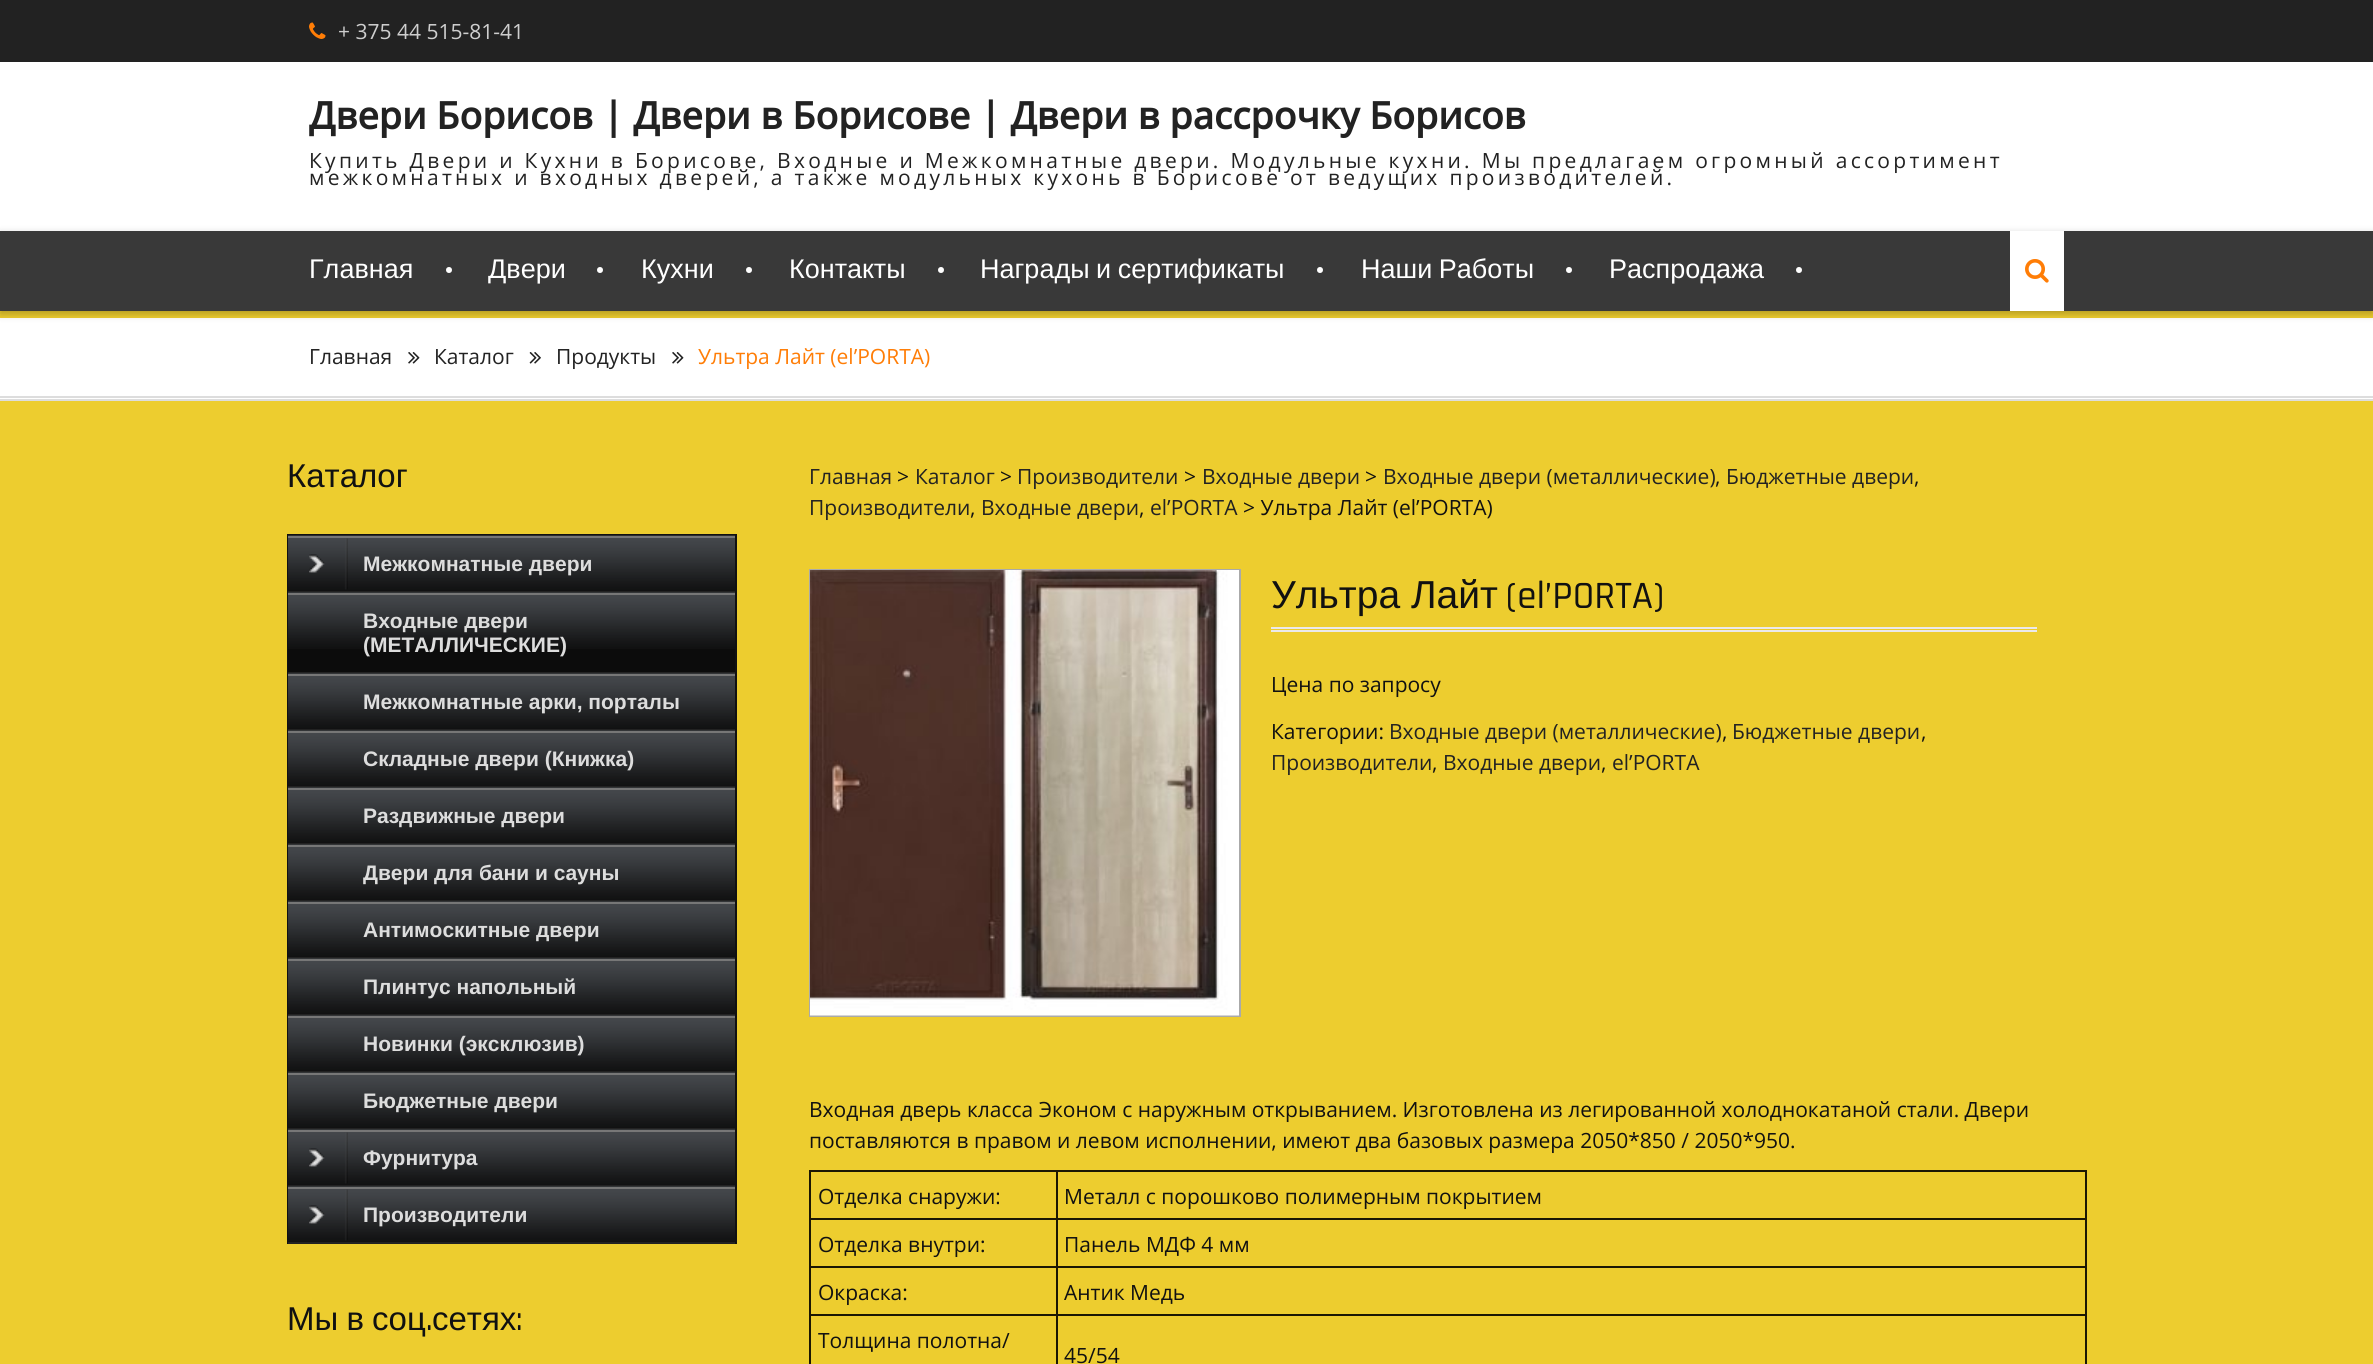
import math
import cairocffi as cairo

surface = cairo.ImageSurface(cairo.FORMAT_RGB24, 2373, 1364)
ctx = cairo.Context(surface)
options = cairo.FontOptions()
options.set_hint_metrics(cairo.HINT_METRICS_OFF)
options.set_hint_style(cairo.HINT_STYLE_NONE)
ctx.set_font_options(options)
ctx.set_miter_limit(4)


def rgb(r, g, b):
    ctx.set_source_rgb(r / 255, g / 255, b / 255)


def face(family, size, italic, bold):
    ctx.select_font_face(family, cairo.FONT_SLANT_ITALIC if italic else cairo.FONT_SLANT_NORMAL, cairo.FONT_WEIGHT_BOLD if bold else cairo.FONT_WEIGHT_NORMAL)
    ctx.set_font_size(size)


def label(x, y, s):
    ctx.move_to(x, y)
    ctx.show_text(s)


def tracked(x, y, s, letter, word):
    ctx.move_to(x, y)
    for ch in s:
        ctx.show_text(ch)
        ctx.rel_move_to(letter + word * (ch == ' '), 0)


def rect(x, y, w, h):
    ctx.rectangle(x, y, w, h)
    ctx.fill()


def rrect(x, y, w, h, r):
    ctx.new_sub_path()
    for i, (u, v) in enumerate([(x + w - r, y + h - r), (x + r, y + h - r), (x + r, y + r), (x + w - r, y + r)]):
        ctx.arc(u, v, r, i * math.pi / 2, (i + 1) * math.pi / 2)
    ctx.close_path()


def soft_shadow(x, y, w, h, r, blur, alpha):
    ctx.push_group_with_content(cairo.CONTENT_ALPHA)
    ctx.set_operator(cairo.OPERATOR_SOURCE)
    for i in range(15, -16, -2):
        e = blur * i / 6
        if min(w, h) + 2 * e > 0:
            ctx.set_source_rgba(0, 0, 0, alpha * math.erfc((i - 1) / 8.5) / 2)
            rrect(x - e, y - e, w + 2 * e, h + 2 * e, max(0, min(r + e + blur * .6, min(w, h) / 2 + e)))
            ctx.fill()
    ctx.mask(ctx.pop_group())


def image(path, x, y, w, h):
    ctx.save()
    ctx.set_source_surface(cairo.ImageSurface.create_from_png(path), x, y)
    ctx.rectangle(x, y, w, h)
    ctx.fill()
    ctx.restore()


rgb(237, 205, 47)
ctx.paint()
rgb(34, 34, 34)
rect(0, 0, 2373, 62)
image('image0.png', 309, 22, 17, 17)
face('Open Sans', 21, 0, 0)
rgb(206, 206, 206)
label(338, 39, '+ 375 44 515-81-41')
rgb(255, 255, 255)
rect(0, 62, 2373, 169)
face('Open Sans', 37.5, 0, 1)
rgb(34, 34, 34)
label(309, 129, 'Двери Борисов | Двери в Борисове | Двери в рассрочку Борисов')
face('Open Sans', 21, 0, 0)
tracked(309, 168, 'Купить Двери и Кухни в Борисове, Входные и Межкомнатные двери. Модульные кухни. Мы предлагаем огромный ассортимент', 3.3, 0)
tracked(309, 185, 'межкомнатных и входных дверей, а также модульных кухонь в Борисове от ведущих производителей.', 3.3, 0)
rgb(255, 255, 255)
rect(0, 318, 2373, 81)
rgb(0, 0, 0)
soft_shadow(0, 234, 2373, 80, 0, 4, 0.26)
rgb(57, 57, 57)
rect(0, 231, 2373, 80)
face('Liberation Sans', 27, 0, 0)
rgb(255, 255, 255)
label(309, 278, 'Главная')
ctx.new_path()
ctx.arc(449, 270, 3, 0, 2 * math.pi)
ctx.fill()
label(488, 278, 'Двери')
ctx.new_path()
ctx.arc(600, 270, 3, 0, 2 * math.pi)
ctx.fill()
label(641, 278, 'Кухни')
ctx.new_path()
ctx.arc(749, 270, 3, 0, 2 * math.pi)
ctx.fill()
label(789, 278, 'Контакты')
ctx.new_path()
ctx.arc(941, 270, 3, 0, 2 * math.pi)
ctx.fill()
tracked(980, 278, 'Награды и сертификаты', 0, -1)
ctx.new_path()
ctx.arc(1320, 270, 3, 0, 2 * math.pi)
ctx.fill()
tracked(1361, 278, 'Наши Работы', 0, -1)
ctx.new_path()
ctx.arc(1569, 270, 3, 0, 2 * math.pi)
ctx.fill()
label(1609, 278, 'Распродажа')
ctx.new_path()
ctx.arc(1799, 270, 3, 0, 2 * math.pi)
ctx.fill()
rect(2010, 231, 54, 80)
image('image1.png', 2025, 259, 24, 24)
rgb(221, 221, 221)
rect(0, 396, 2373, 2)
rect(0, 399, 2373, 2)
face('Open Sans', 21, 0, 0)
rgb(34, 34, 34)
label(309, 364, 'Главная')
image('image2.png', 408, 352, 12, 12)
label(434, 364, 'Каталог')
image('image3.png', 529, 352, 12, 12)
label(556, 364, 'Продукты')
image('image2.png', 672, 352, 12, 12)
rgb(255, 125, 6)
label(698, 364, 'Ультра Лайт (el’PORTA)')
face('Liberation Sans', 33, 0, 0)
rgb(17, 17, 17)
label(287, 487, 'Каталог')
rect(287, 534, 450, 2)
rect(735, 534, 2, 710)
rect(287, 534, 2, 710)
image('image4.png', 288, 535, 447, 56)
rgb(119, 119, 119)
rect(288, 536, 447, 2)
rgb(34, 34, 34)
rect(288, 591, 447, 2)
image('image5.png', 309, 538, 39, 52)
face('Liberation Sans', 21, 0, 1)
rgb(221, 221, 221)
label(363, 571, 'Межкомнатные двери')
rgb(12, 12, 12)
rect(288, 649, 447, 23)
image('image6.png', 288, 592, 447, 57)
rgb(119, 119, 119)
rect(288, 593, 447, 2)
rgb(34, 34, 34)
rect(288, 672, 447, 2)
rgb(221, 221, 221)
label(363, 628, 'Входные двери')
label(363, 652, '(МЕТАЛЛИЧЕСКИЕ)')
image('image7.png', 288, 673, 447, 56)
rgb(119, 119, 119)
rect(288, 674, 447, 2)
rgb(34, 34, 34)
rect(288, 729, 447, 2)
rgb(221, 221, 221)
label(363, 709, 'Межкомнатные арки, порталы')
image('image7.png', 288, 730, 447, 56)
rgb(119, 119, 119)
rect(288, 731, 447, 2)
rgb(34, 34, 34)
rect(288, 786, 447, 2)
rgb(221, 221, 221)
label(363, 766, 'Складные двери (Книжка)')
image('image7.png', 288, 787, 447, 56)
rgb(119, 119, 119)
rect(288, 788, 447, 2)
rgb(34, 34, 34)
rect(288, 843, 447, 2)
rgb(221, 221, 221)
label(363, 823, 'Раздвижные двери')
image('image7.png', 288, 844, 447, 56)
rgb(119, 119, 119)
rect(288, 845, 447, 2)
rgb(34, 34, 34)
rect(288, 900, 447, 2)
rgb(221, 221, 221)
label(363, 880, 'Двери для бани и сауны')
image('image7.png', 288, 901, 447, 56)
rgb(119, 119, 119)
rect(288, 902, 447, 2)
rgb(34, 34, 34)
rect(288, 957, 447, 2)
rgb(221, 221, 221)
label(363, 937, 'Антимоскитные двери')
image('image7.png', 288, 958, 447, 56)
rgb(119, 119, 119)
rect(288, 959, 447, 2)
rgb(34, 34, 34)
rect(288, 1014, 447, 2)
rgb(221, 221, 221)
label(363, 994, 'Плинтус напольный')
image('image7.png', 288, 1015, 447, 56)
rgb(119, 119, 119)
rect(288, 1016, 447, 2)
rgb(34, 34, 34)
rect(288, 1071, 447, 2)
rgb(221, 221, 221)
label(363, 1051, 'Новинки (эксклюзив)')
image('image7.png', 288, 1072, 447, 56)
rgb(119, 119, 119)
rect(288, 1073, 447, 2)
rgb(34, 34, 34)
rect(288, 1128, 447, 2)
rgb(221, 221, 221)
label(363, 1108, 'Бюджетные двери')
image('image7.png', 288, 1129, 447, 56)
rgb(119, 119, 119)
rect(288, 1130, 447, 2)
rgb(34, 34, 34)
rect(288, 1185, 447, 2)
image('image5.png', 309, 1132, 39, 52)
rgb(221, 221, 221)
label(363, 1165, 'Фурнитура')
image('image7.png', 288, 1186, 447, 56)
rgb(119, 119, 119)
rect(288, 1187, 447, 2)
rgb(34, 34, 34)
rect(288, 1242, 447, 2)
image('image5.png', 309, 1189, 39, 52)
rgb(221, 221, 221)
label(363, 1222, 'Производители')
face('Liberation Sans', 33, 0, 0)
rgb(17, 17, 17)
tracked(287, 1330, 'Мы в соц', 0, -1)
face('Rajdhani Medium', 33, 0, 0)
label(426, 1330, '.')
face('Liberation Sans', 33, 0, 0)
label(432, 1330, 'сетях')
face('Rajdhani Medium', 33, 0, 0)
label(516, 1330, ':')
face('Open Sans', 21, 0, 0)
rgb(34, 34, 34)
label(809, 484, 'Главная')
rgb(17, 17, 17)
label(897, 484, '>')
rgb(34, 34, 34)
label(915, 484, 'Каталог')
rgb(17, 17, 17)
label(1000, 484, '>')
rgb(34, 34, 34)
label(1017, 484, 'Производители')
rgb(17, 17, 17)
label(1184, 484, '>')
rgb(34, 34, 34)
label(1202, 484, 'Входные двери')
rgb(17, 17, 17)
label(1365, 484, '>')
rgb(34, 34, 34)
label(1383, 484, 'Входные двери (металлические)')
label(1726, 484, 'Бюджетные двери')
rgb(17, 17, 17)
label(1715, 484, ',')
label(1914, 484, ',')
rgb(34, 34, 34)
label(809, 515, 'Производители')
rgb(17, 17, 17)
label(970, 515, ',')
rgb(34, 34, 34)
label(981, 515, 'Входные двери')
rgb(17, 17, 17)
label(1139, 515, ',')
rgb(34, 34, 34)
label(1150, 515, 'el’PORTA')
rgb(17, 17, 17)
label(1243, 515, '> Ультра Лайт (el’PORTA)')
ctx.rectangle(810, 570, 430, 446)
rgb(170, 170, 170)
ctx.stroke()
image('image8.png', 810, 570, 429, 446)
rgb(235, 233, 235)
rect(1271, 627, 766, 2)
rect(1271, 630, 766, 2)
face('Liberation Sans', 39, 0, 0)
rgb(17, 17, 17)
label(1271, 608, 'Ультра Лайт')
face('Rajdhani Medium', 39, 0, 0)
label(1506, 608, '(el’PORTA)')
face('Open Sans', 21, 0, 0)
label(1271, 692, 'Цена по запросу')
label(1271, 739, 'Категории:')
rgb(34, 34, 34)
label(1389, 739, 'Входные двери (металлические)')
rgb(17, 17, 17)
label(1722, 739, ',')
rgb(34, 34, 34)
label(1732, 739, 'Бюджетные двери')
rgb(17, 17, 17)
label(1921, 739, ',')
rgb(34, 34, 34)
label(1271, 770, 'Производители')
rgb(17, 17, 17)
label(1432, 770, ',')
rgb(34, 34, 34)
label(1443, 770, 'Входные двери')
rgb(17, 17, 17)
label(1601, 770, ',')
rgb(34, 34, 34)
label(1612, 770, 'el’PORTA')
rgb(17, 17, 17)
label(809, 1117, 'Входная дверь класса Эконом с наружным открыванием. Изготовлена из легированной холоднокатаной стали. Двери')
label(809, 1148, 'поставляются в правом и левом исполнении, имеют два базовых размера 2050*850 / 2050*950.')
rgb(27, 23, 3)
rect(809, 1170, 1278, 2)
rect(2085, 1170, 2, 194)
rect(809, 1170, 2, 194)
rgb(17, 17, 17)
label(818, 1204, 'Отделка снаружи:')
rgb(27, 23, 3)
rect(1056, 1218, 1031, 2)
rect(1056, 1266, 1031, 2)
rect(1056, 1314, 1031, 2)
rect(1056, 1314, 2, 50)
rect(809, 1314, 249, 2)
rect(1056, 1266, 2, 50)
rect(809, 1266, 249, 2)
rect(1056, 1218, 2, 50)
rect(809, 1218, 249, 2)
rect(1056, 1170, 2, 50)
rgb(17, 17, 17)
label(1064, 1204, 'Металл с порошково полимерным покрытием')
label(818, 1252, 'Отделка внутри:')
label(1064, 1252, 'Панель МДФ 4 мм')
label(818, 1300, 'Окраска:')
label(1064, 1300, 'Антик Медь')
label(818, 1348, 'Толщина полотна/')
label(1064, 1363, '45/54')
surface.write_to_png('render.png')
